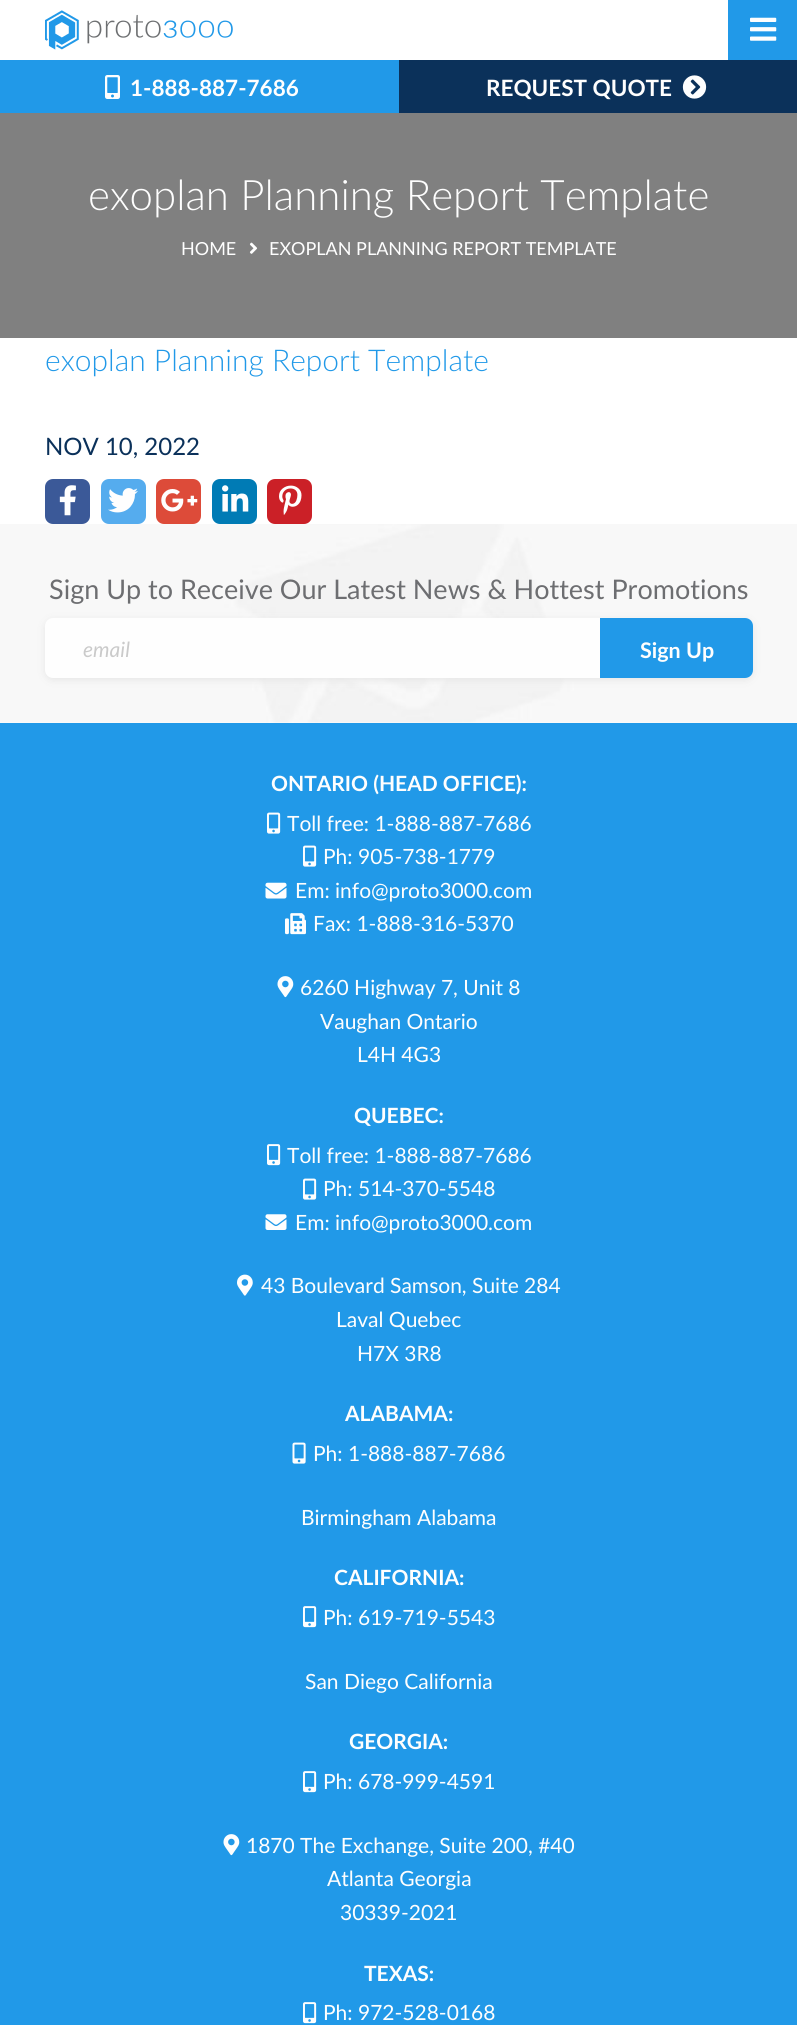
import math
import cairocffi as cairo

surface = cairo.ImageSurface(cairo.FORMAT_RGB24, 797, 2025)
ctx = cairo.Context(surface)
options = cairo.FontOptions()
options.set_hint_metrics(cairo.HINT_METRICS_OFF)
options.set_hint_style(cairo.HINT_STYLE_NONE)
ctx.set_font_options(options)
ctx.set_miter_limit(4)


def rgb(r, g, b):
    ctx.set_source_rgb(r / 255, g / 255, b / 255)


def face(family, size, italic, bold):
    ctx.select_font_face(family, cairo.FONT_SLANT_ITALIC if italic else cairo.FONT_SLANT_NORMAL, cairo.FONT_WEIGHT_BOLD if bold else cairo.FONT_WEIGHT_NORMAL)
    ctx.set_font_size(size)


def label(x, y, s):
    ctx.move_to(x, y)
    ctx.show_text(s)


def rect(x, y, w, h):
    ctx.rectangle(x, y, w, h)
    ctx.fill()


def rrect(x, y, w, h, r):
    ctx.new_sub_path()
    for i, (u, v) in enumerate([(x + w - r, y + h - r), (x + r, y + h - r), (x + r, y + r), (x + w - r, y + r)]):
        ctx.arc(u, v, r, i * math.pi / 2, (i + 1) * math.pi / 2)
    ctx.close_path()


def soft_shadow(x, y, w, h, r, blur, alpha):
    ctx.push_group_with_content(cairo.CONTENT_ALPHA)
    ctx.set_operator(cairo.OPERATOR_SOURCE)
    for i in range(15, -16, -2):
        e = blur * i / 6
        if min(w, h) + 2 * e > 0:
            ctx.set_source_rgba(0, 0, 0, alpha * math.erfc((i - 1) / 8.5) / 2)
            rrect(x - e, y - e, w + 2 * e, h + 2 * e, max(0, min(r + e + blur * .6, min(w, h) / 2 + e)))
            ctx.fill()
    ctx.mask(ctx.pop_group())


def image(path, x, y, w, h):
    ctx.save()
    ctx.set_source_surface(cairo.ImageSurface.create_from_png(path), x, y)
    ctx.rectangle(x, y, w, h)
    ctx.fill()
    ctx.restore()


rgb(255, 255, 255)
ctx.paint()
image('image0.png', 45, 10, 188, 40)
rgb(33, 153, 232)
rect(728, 0, 69, 60)
image('image1.png', 750, 17, 27, 24)
rect(0, 60, 399, 53)
image('image2.png', 105, 75, 15, 24)
face('Lato', 22.5, 0, 1)
rgb(254, 254, 254)
label(130, 96, '1-888-887-7686')
rgb(11, 49, 90)
rect(399, 60, 398, 53)
rgb(254, 254, 254)
label(486, 96, 'REQUEST QUOTE')
image('image3.png', 682, 75, 25, 24)
rgb(128, 128, 128)
rect(0, 113, 797, 225)
face('Lato Light', 42, 0, 0)
rgb(254, 254, 254)
label(88, 210, 'exoplan Planning Report Template')
face('Lato', 18, 0, 0)
label(181, 255, 'HOME')
image('image4.png', 249, 242, 9, 12)
label(269, 255, 'EXOPLAN PLANNING REPORT TEMPLATE')
face('Lato Light', 30, 0, 0)
rgb(33, 153, 232)
label(45, 371, 'exoplan Planning Report Template')
face('Lato', 24, 0, 0)
rgb(11, 49, 90)
label(45, 455, 'NOV 10, 2022')
rgb(59, 89, 152)
rrect(45, 479, 45, 45, 8)
ctx.fill()
image('image5.png', 59, 485, 17, 31)
rgb(85, 172, 238)
rrect(101, 479, 45, 45, 8)
ctx.fill()
image('image6.png', 108, 488, 30, 25)
rgb(221, 75, 57)
rrect(156, 479, 45, 45, 8)
ctx.fill()
image('image7.png', 161, 489, 37, 23)
rgb(0, 123, 181)
rrect(212, 479, 45, 45, 8)
ctx.fill()
image('image8.png', 222, 485, 27, 27)
rgb(203, 32, 39)
rrect(267, 479, 45, 45, 8)
ctx.fill()
image('image9.png', 279, 485, 23, 30)
image('image10.png', 0, 524, 797, 199)
face('Lato', 27, 0, 0)
rgb(109, 110, 113)
label(49, 599, 'Sign Up to Receive Our Latest News & Hottest Promotions')
rgb(230, 230, 230)
soft_shadow(45, 620, 708, 60, 8, 4, 1)
rgb(254, 254, 254)
rrect(45, 618, 708, 60, 8)
ctx.fill()
face('Lato', 21, 1, 0)
rgb(202, 202, 202)
label(83, 657, 'email')
rgb(33, 153, 232)
ctx.new_path()
ctx.move_to(600, 618)
ctx.line_to(745, 618)
ctx.curve_to(749.5, 618, 753, 621.5, 753, 626)
ctx.line_to(753, 670)
ctx.curve_to(753, 674.5, 749.5, 678, 745, 678)
ctx.line_to(600, 678)
ctx.close_path()
ctx.fill()
face('Lato', 21.5, 0, 1)
rgb(254, 254, 254)
label(640, 658, 'Sign Up')
rgb(33, 153, 232)
rect(0, 723, 797, 1302)
face('Lato', 21, 0, 1)
rgb(254, 254, 254)
label(271, 791, 'ONTARIO (HEAD OFFICE):')
image('image11.png', 267, 812, 14, 22)
face('Lato', 21, 0, 0)
label(287, 831, 'Toll free: 1-888-887-7686')
image('image11.png', 303, 845, 14, 22)
label(323, 864, 'Ph: 905-738-1779')
image('image12.png', 265, 882, 22, 17)
label(295, 898, 'Em: info@proto3000.com')
image('image13.png', 285, 913, 21, 22)
label(313, 931, 'Fax: 1-888-316-5370')
image('image14.png', 277, 976, 17, 22)
label(300, 995, '6260 Highway 7, Unit 8')
label(320, 1029, 'Vaughan Ontario')
label(357, 1062, 'L4H 4G3')
face('Lato', 21, 0, 1)
label(354, 1123, 'QUEBEC:')
image('image15.png', 267, 1144, 14, 22)
face('Lato', 21, 0, 0)
label(287, 1163, 'Toll free: 1-888-887-7686')
image('image11.png', 303, 1178, 14, 22)
label(323, 1196, 'Ph: 514-370-5548')
image('image16.png', 265, 1214, 22, 16)
label(295, 1230, 'Em: info@proto3000.com')
image('image17.png', 237, 1274, 16, 22)
label(261, 1293, '43 Boulevard Samson, Suite 284')
label(336, 1327, 'Laval Quebec')
label(357, 1361, 'H7X 3R8')
face('Lato', 21, 0, 1)
label(345, 1421, 'ALABAMA:')
image('image18.png', 292, 1442, 14, 22)
face('Lato', 21, 0, 0)
label(313, 1461, 'Ph: 1-888-887-7686')
label(301, 1525, 'Birmingham Alabama')
face('Lato', 21, 0, 1)
label(334, 1585, 'CALIFORNIA:')
image('image15.png', 303, 1606, 14, 22)
face('Lato', 21, 0, 0)
label(323, 1625, 'Ph: 619-719-5543')
label(305, 1689, 'San Diego California')
face('Lato', 21, 0, 1)
label(349, 1749, 'GEORGIA:')
image('image15.png', 303, 1771, 14, 22)
face('Lato', 21, 0, 0)
label(323, 1789, 'Ph: 678-999-4591')
image('image14.png', 223, 1834, 17, 22)
label(246, 1853, '1870 The Exchange, Suite 200, #40')
label(327, 1886, 'Atlanta Georgia')
label(340, 1920, '30339-2021')
face('Lato', 21, 0, 1)
label(364, 1981, 'TEXAS:')
image('image15.png', 303, 2002, 14, 22)
face('Lato', 21, 0, 0)
label(323, 2020, 'Ph: 972-528-0168')
surface.write_to_png('render.png')
